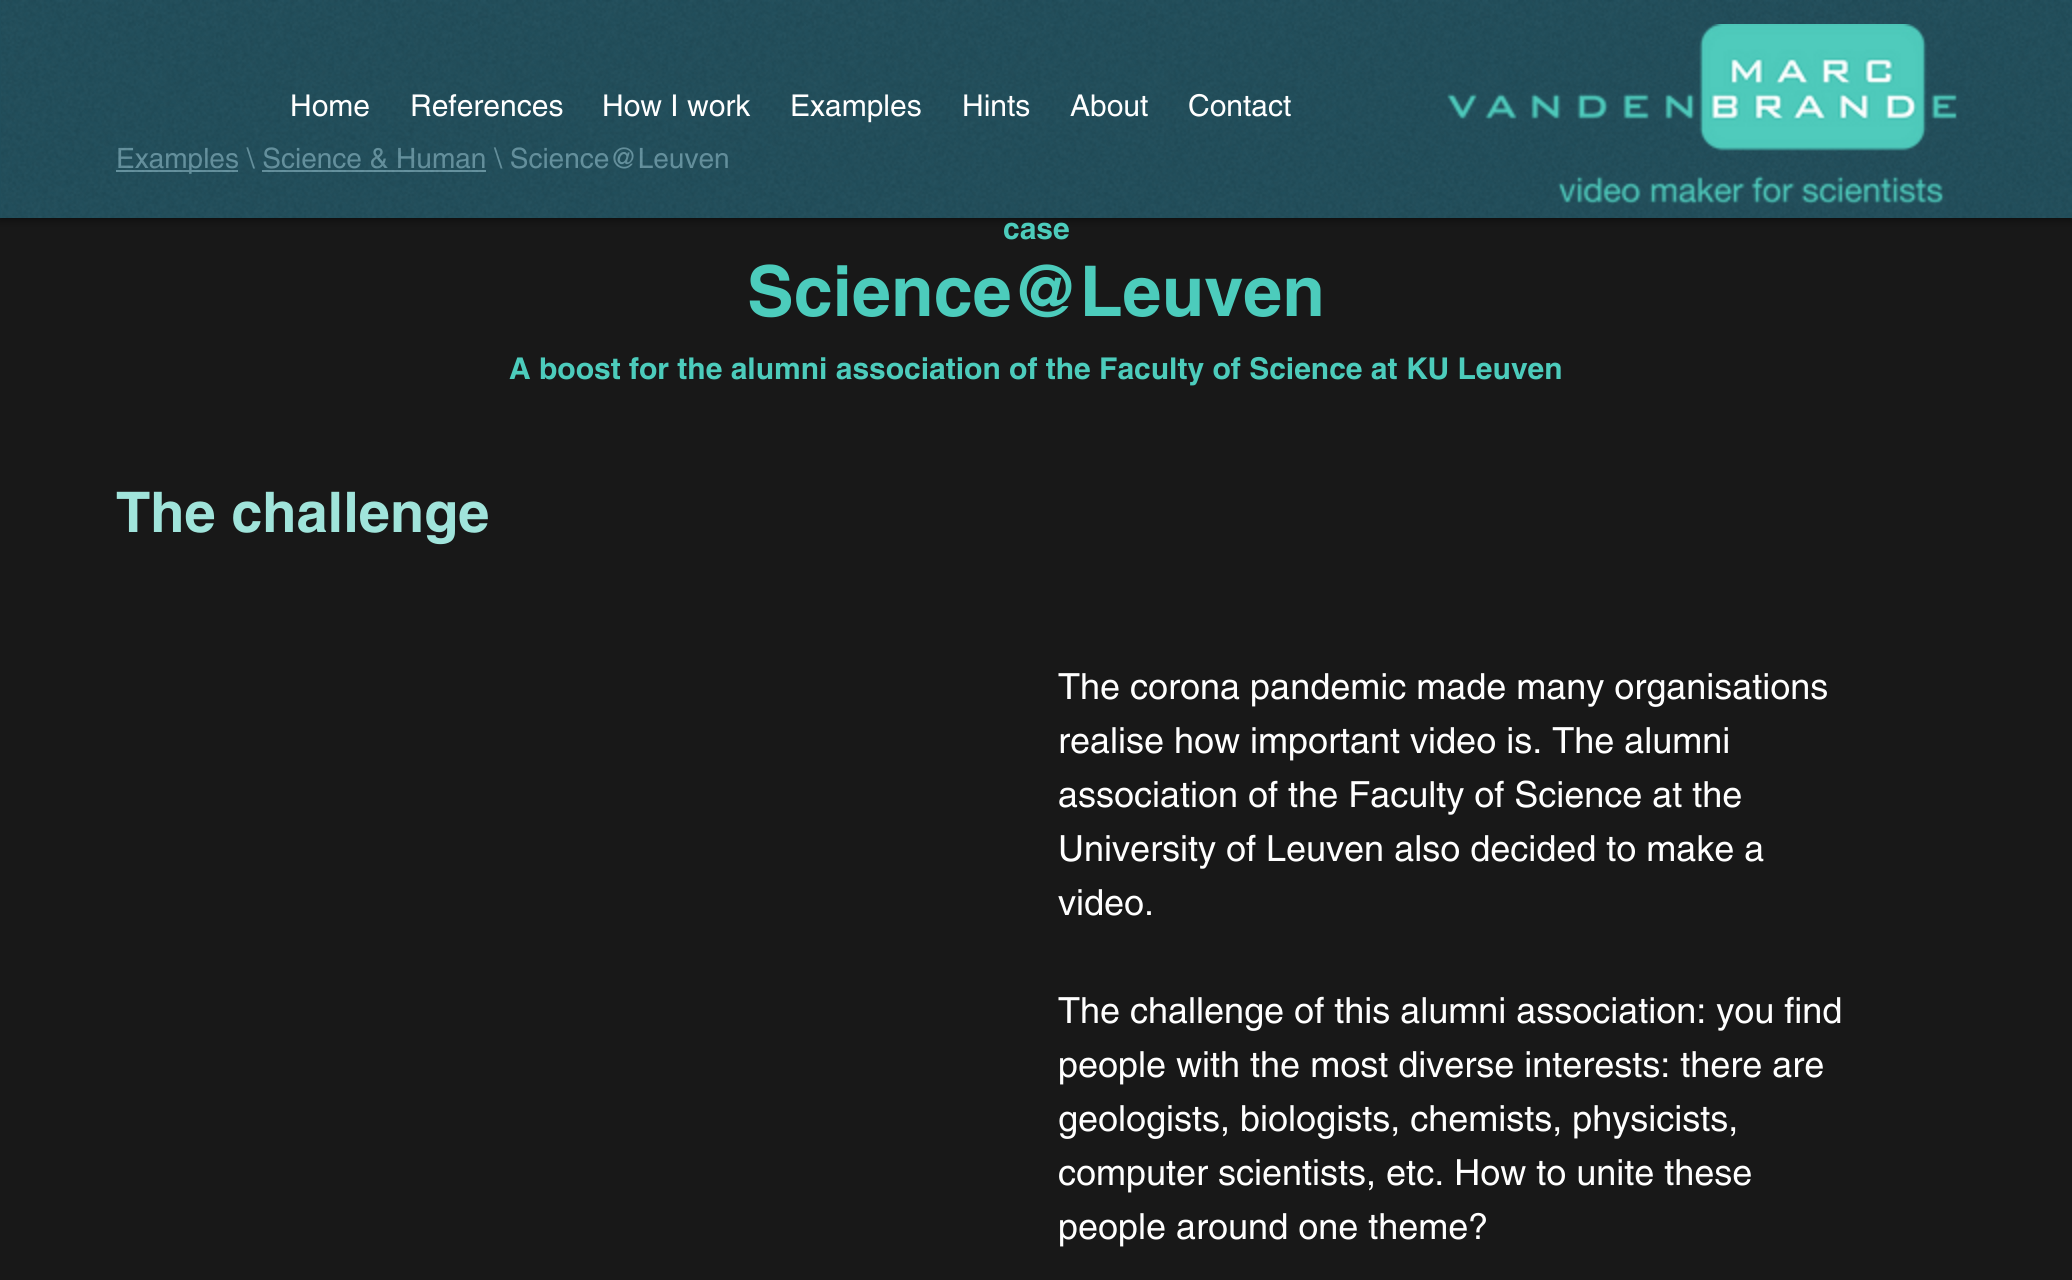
import math
import cairocffi as cairo

surface = cairo.ImageSurface(cairo.FORMAT_RGB24, 2072, 1280)
ctx = cairo.Context(surface)
options = cairo.FontOptions()
options.set_hint_metrics(cairo.HINT_METRICS_OFF)
options.set_hint_style(cairo.HINT_STYLE_NONE)
ctx.set_font_options(options)
ctx.set_miter_limit(4)


def rgb(r, g, b):
    ctx.set_source_rgb(r / 255, g / 255, b / 255)


def face(family, size, italic, bold):
    ctx.select_font_face(family, cairo.FONT_SLANT_ITALIC if italic else cairo.FONT_SLANT_NORMAL, cairo.FONT_WEIGHT_BOLD if bold else cairo.FONT_WEIGHT_NORMAL)
    ctx.set_font_size(size)


def label(x, y, s):
    ctx.move_to(x, y)
    ctx.show_text(s)


def rect(x, y, w, h):
    ctx.rectangle(x, y, w, h)
    ctx.fill()


def rrect(x, y, w, h, r):
    ctx.new_sub_path()
    for i, (u, v) in enumerate([(x + w - r, y + h - r), (x + r, y + h - r), (x + r, y + r), (x + w - r, y + r)]):
        ctx.arc(u, v, r, i * math.pi / 2, (i + 1) * math.pi / 2)
    ctx.close_path()


def soft_shadow(x, y, w, h, r, blur, alpha):
    ctx.push_group_with_content(cairo.CONTENT_ALPHA)
    ctx.set_operator(cairo.OPERATOR_SOURCE)
    for i in range(15, -16, -2):
        e = blur * i / 6
        if min(w, h) + 2 * e > 0:
            ctx.set_source_rgba(0, 0, 0, alpha * math.erfc((i - 1) / 8.5) / 2)
            rrect(x - e, y - e, w + 2 * e, h + 2 * e, max(0, min(r + e + blur * .6, min(w, h) / 2 + e)))
            ctx.fill()
    ctx.mask(ctx.pop_group())


def image(path, x, y, w, h):
    ctx.save()
    ctx.set_source_surface(cairo.ImageSurface.create_from_png(path), x, y)
    ctx.rectangle(x, y, w, h)
    ctx.fill()
    ctx.restore()


rgb(24, 24, 24)
ctx.paint()
rgb(33, 78, 91)
rect(0, 0, 2072, 218)
rgb(101, 146, 159)
rect(116, 170, 122, 2)
rect(262, 170, 224, 2)
ctx.save()
ctx.rectangle(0, 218, 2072, 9)
ctx.clip()
rgb(0, 0, 0)
soft_shadow(0, 0, 2072, 218, 0, 5, 0.7)
ctx.restore()
face('helvetica', 28, 0, 0)
label(116, 168, 'Examples \\ Science & Human \\ Science@Leuven')
image('image0.png', 1, 0, 2071, 218)
face('helvetica', 30, 0, 0)
rgb(255, 255, 255)
label(290, 116, 'Home')
label(410, 116, 'References')
label(602, 116, 'How I work')
label(790, 116, 'Examples')
label(962, 116, 'Hints')
label(1070, 116, 'About')
label(1188, 116, 'Contact')
image('image1.png', 1447, 24, 510, 181)
face('helvetica', 30, 0, 1)
rgb(76, 204, 188)
label(1003, 239, 'case')
face('helvetica', 70, 0, 1)
label(747, 316, 'Science@Leuven')
face('helvetica', 30, 0, 1)
label(509, 379, 'A boost for the alumni association of the Faculty of Science at KU Leuven')
face('helvetica', 56, 0, 1)
rgb(160, 228, 219)
label(116, 532, 'The challenge')
face('helvetica', 36, 0, 0)
rgb(255, 255, 255)
label(1058, 699, 'The corona pandemic made many organisations')
label(1058, 753, 'realise how important video is. The alumni')
label(1058, 807, 'association of the Faculty of Science at the')
label(1058, 861, 'University of Leuven also decided to make a')
label(1058, 915, 'video.')
label(1058, 1023, 'The challenge of this alumni association: you find')
label(1058, 1077, 'people with the most diverse interests: there are')
label(1058, 1131, 'geologists, biologists, chemists, physicists,')
label(1058, 1185, 'computer scientists, etc. How to unite these')
label(1058, 1239, 'people around one theme?')
surface.write_to_png('render.png')
